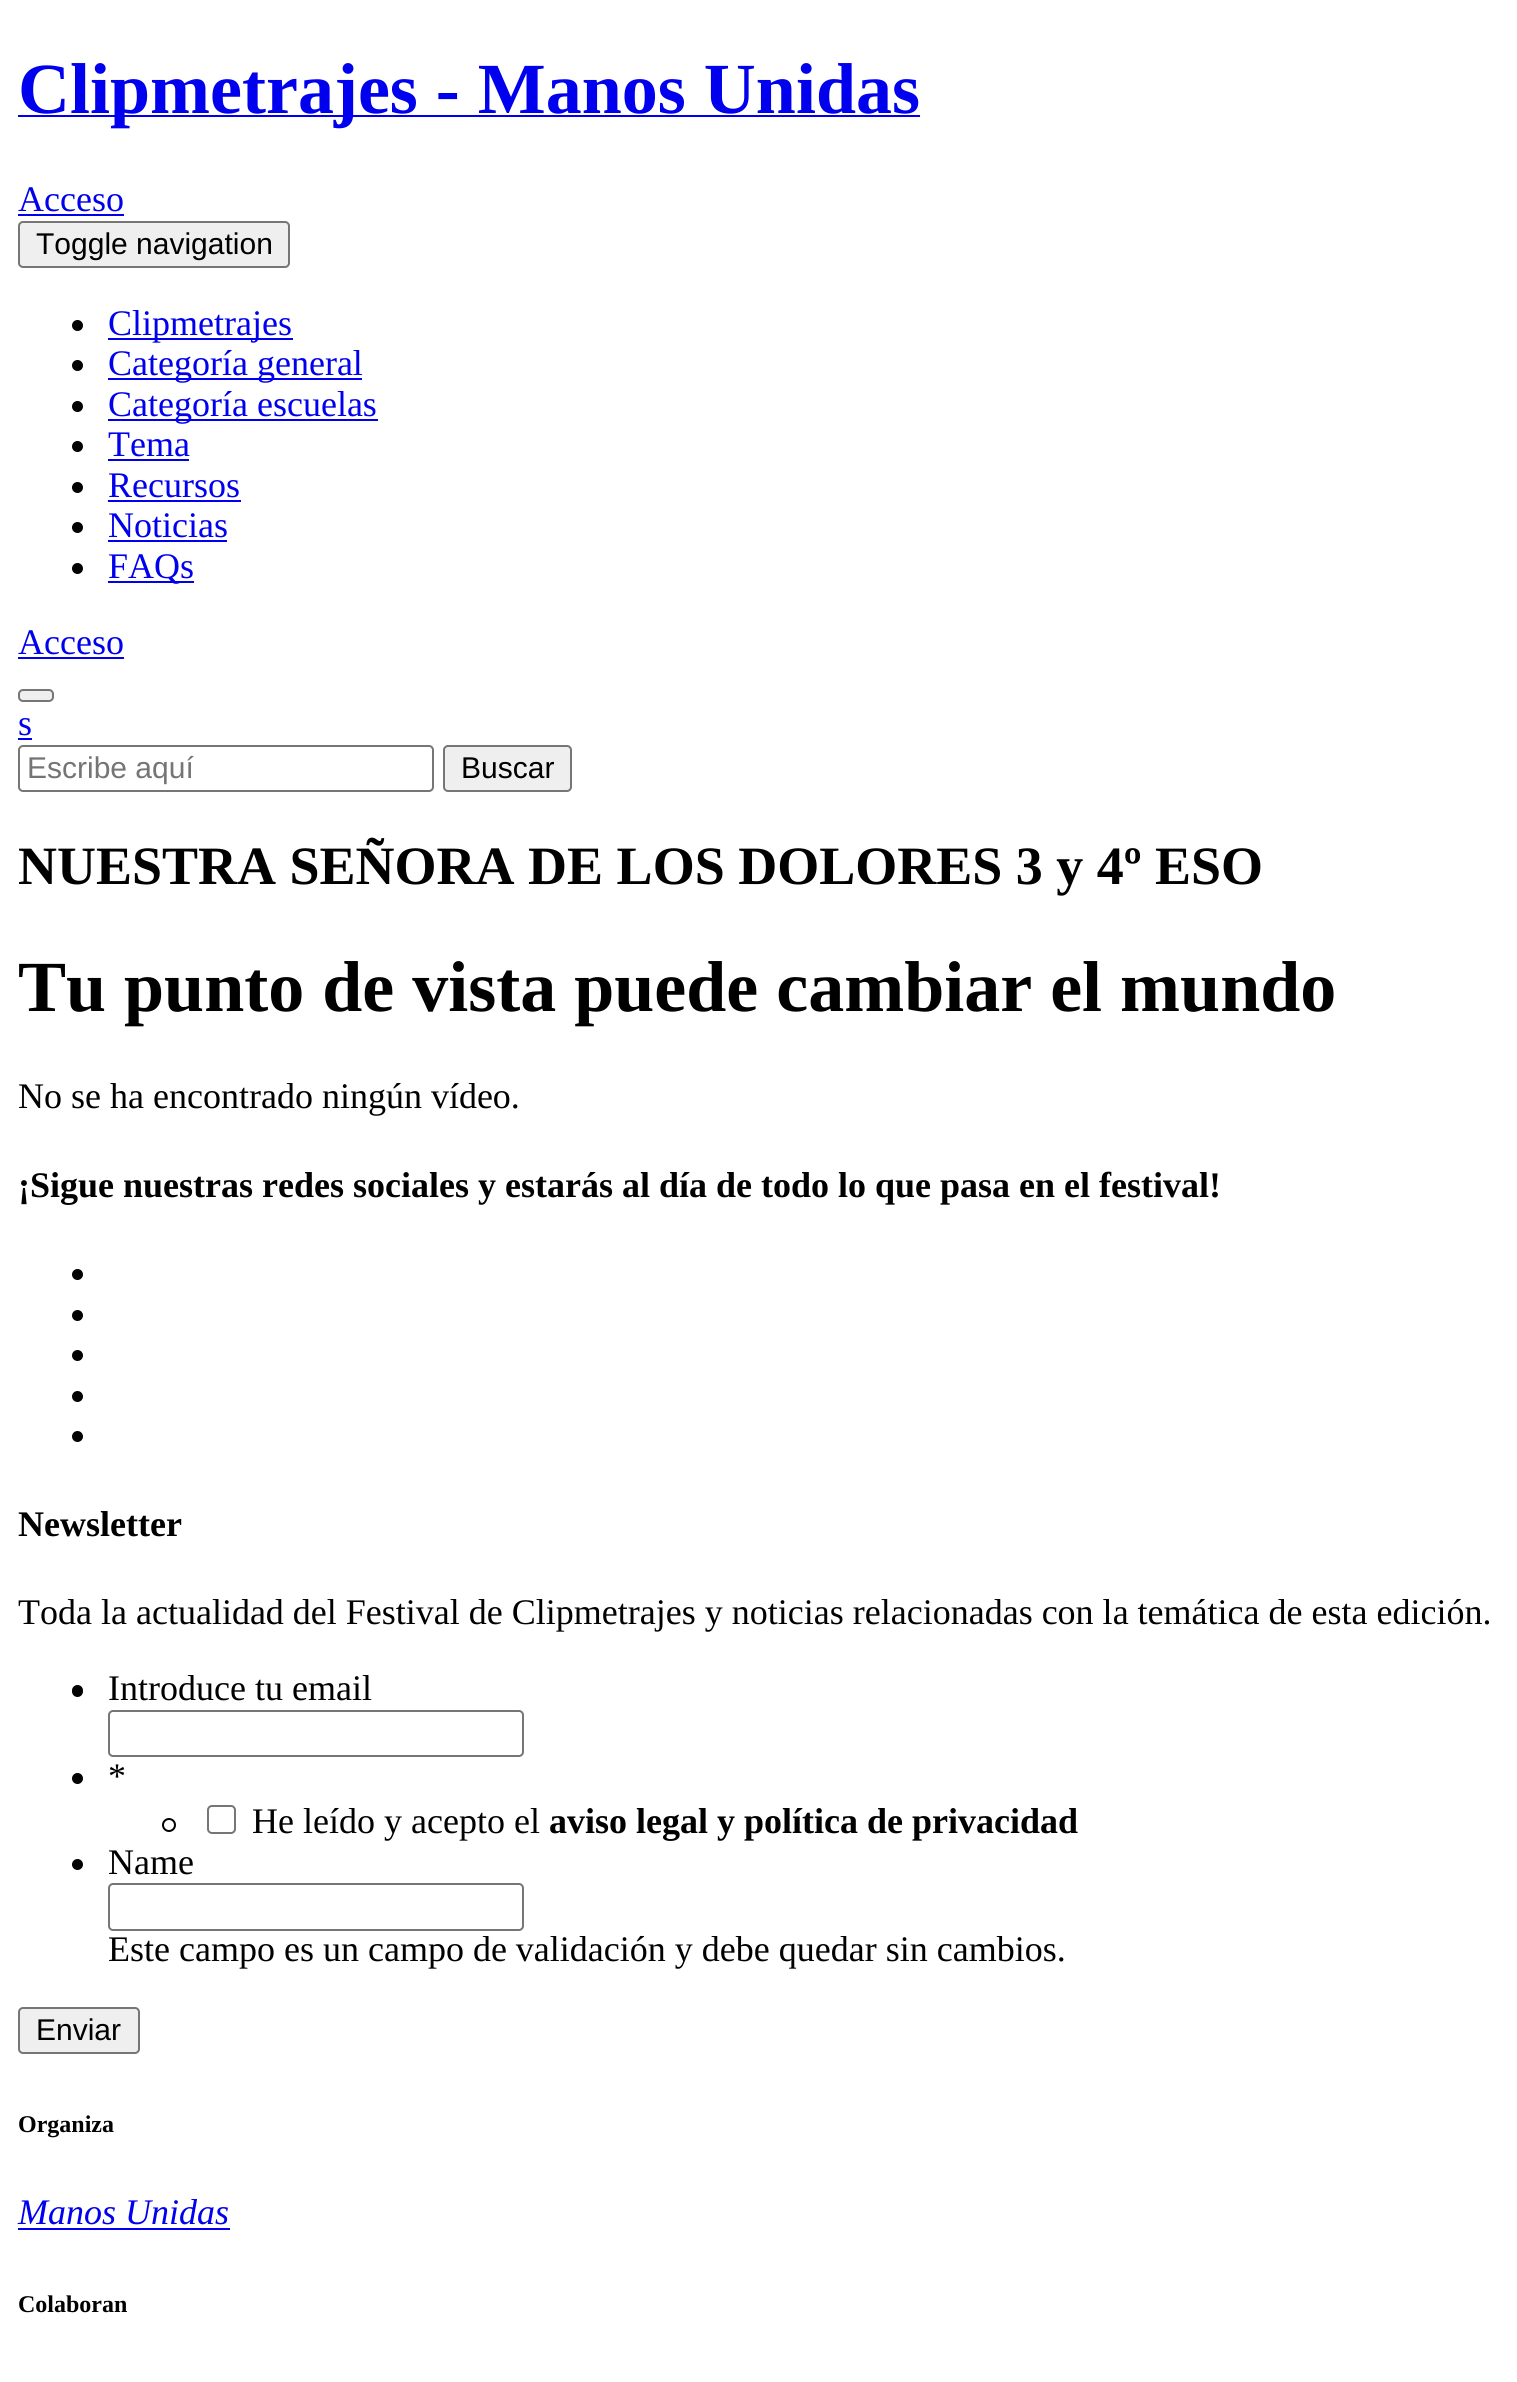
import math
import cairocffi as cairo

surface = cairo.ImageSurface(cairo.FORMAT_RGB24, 1517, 2382)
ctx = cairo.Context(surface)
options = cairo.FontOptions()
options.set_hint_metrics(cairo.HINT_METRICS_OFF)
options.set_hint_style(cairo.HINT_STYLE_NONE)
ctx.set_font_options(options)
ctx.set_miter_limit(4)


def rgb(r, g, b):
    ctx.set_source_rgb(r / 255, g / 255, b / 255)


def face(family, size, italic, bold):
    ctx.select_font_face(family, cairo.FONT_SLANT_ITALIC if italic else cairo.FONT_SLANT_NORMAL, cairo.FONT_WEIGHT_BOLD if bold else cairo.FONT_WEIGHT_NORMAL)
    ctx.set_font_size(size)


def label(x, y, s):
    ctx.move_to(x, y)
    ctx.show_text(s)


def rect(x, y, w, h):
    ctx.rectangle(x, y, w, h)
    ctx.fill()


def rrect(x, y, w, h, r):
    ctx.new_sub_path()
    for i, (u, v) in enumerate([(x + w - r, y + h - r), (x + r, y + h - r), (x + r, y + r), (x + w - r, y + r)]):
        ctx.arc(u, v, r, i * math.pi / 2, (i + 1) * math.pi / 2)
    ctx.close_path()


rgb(255, 255, 255)
ctx.paint()
rgb(0, 0, 238)
rect(18, 115, 902, 2)
face('Liberation Serif', 72, 0, 1)
label(18, 113, 'Clipmetrajes - Manos Unidas')
face('Liberation Serif', 36, 0, 0)
label(18, 211, 'Acceso')
rect(18, 214, 106, 2)
rgb(239, 239, 239)
rrect(19, 222, 270, 45, 4)
ctx.fill_preserve()
rgb(118, 118, 118)
ctx.stroke()
face('Liberation Sans', 30, 0, 0)
rgb(0, 0, 0)
label(36, 254, 'Toggle navigation')
ctx.new_path()
ctx.arc(77.5, 325.5, 5.5, 0, 2 * math.pi)
ctx.fill()
rgb(0, 0, 238)
rect(108, 338, 185, 2)
face('Liberation Serif', 36, 0, 0)
label(108, 335, 'Clipmetrajes')
rgb(0, 0, 0)
ctx.new_path()
ctx.arc(77.5, 365.5, 5.5, 0, 2 * math.pi)
ctx.fill()
rgb(0, 0, 238)
rect(108, 378, 254, 2)
label(108, 375, 'Categoría general')
rgb(0, 0, 0)
ctx.new_path()
ctx.arc(77.5, 406.5, 5.5, 0, 2 * math.pi)
ctx.fill()
rgb(0, 0, 238)
rect(108, 419, 270, 2)
label(108, 416, 'Categoría escuelas')
rgb(0, 0, 0)
ctx.new_path()
ctx.arc(77.5, 446.5, 5.5, 0, 2 * math.pi)
ctx.fill()
rgb(0, 0, 238)
label(108, 456, 'Tema')
rect(108, 459, 81, 2)
rgb(0, 0, 0)
ctx.new_path()
ctx.arc(77.5, 487.5, 5.5, 0, 2 * math.pi)
ctx.fill()
rgb(0, 0, 238)
label(108, 497, 'Recursos')
rect(108, 500, 133, 2)
rgb(0, 0, 0)
ctx.new_path()
ctx.arc(77.5, 527.5, 5.5, 0, 2 * math.pi)
ctx.fill()
rgb(0, 0, 238)
label(108, 537, 'Noticias')
rect(108, 540, 119, 2)
rgb(0, 0, 0)
ctx.new_path()
ctx.arc(77.5, 568.5, 5.5, 0, 2 * math.pi)
ctx.fill()
rgb(0, 0, 238)
rect(108, 581, 86, 2)
label(108, 578, 'FAQs')
label(18, 654, 'Acceso')
rect(18, 657, 106, 2)
rgb(239, 239, 239)
rrect(19, 690, 34, 11, 4)
ctx.fill_preserve()
rgb(118, 118, 118)
ctx.stroke()
rgb(0, 0, 238)
label(18, 735, 's')
rect(18, 738, 14, 2)
rrect(19, 746, 414, 45, 4)
rgb(118, 118, 118)
ctx.stroke()
face('Liberation Sans', 30, 0, 0)
rgb(117, 117, 117)
label(27, 778, 'Escribe aquí')
rgb(239, 239, 239)
rrect(444, 746, 127, 45, 4)
ctx.fill_preserve()
rgb(118, 118, 118)
ctx.stroke()
rgb(0, 0, 0)
label(461, 778, 'Buscar')
face('Liberation Serif', 54, 0, 1)
label(18, 884, 'NUESTRA SEÑORA DE LOS DOLORES 3 y 4º ESO')
face('Liberation Serif', 72, 0, 1)
label(18, 1011, 'Tu punto de vista puede cambiar el mundo')
face('Liberation Serif', 36, 0, 0)
label(18, 1108, 'No se ha encontrado ningún vídeo.')
face('Liberation Serif', 36, 0, 1)
label(18, 1197, '¡Sigue nuestras redes sociales y estarás al día de todo lo que pasa en el festival!')
ctx.new_path()
ctx.arc(77.5, 1274.5, 5.5, 0, 2 * math.pi)
ctx.fill()
ctx.arc(77.5, 1315.5, 5.5, 0, 2 * math.pi)
ctx.fill()
ctx.arc(77.5, 1355.5, 5.5, 0, 2 * math.pi)
ctx.fill()
ctx.arc(77.5, 1396.5, 5.5, 0, 2 * math.pi)
ctx.fill()
ctx.arc(77.5, 1436.5, 5.5, 0, 2 * math.pi)
ctx.fill()
label(18, 1536, 'Newsletter')
face('Liberation Serif', 36, 0, 0)
label(18, 1624, 'Toda la actualidad del Festival de Clipmetrajes y noticias relacionadas con la temática de esta edición.')
rrect(72, 1685, 11, 12, 5.5)
ctx.fill()
label(108, 1700, 'Introduce tu email')
rrect(109, 1711, 414, 45, 4)
rgb(118, 118, 118)
ctx.stroke()
rgb(0, 0, 0)
ctx.arc(77.5, 1778.5, 5.5, 0, 2 * math.pi)
ctx.fill()
label(108, 1788, '*')
ctx.new_path()
ctx.arc(169, 1825, 6, 0, 2 * math.pi)
ctx.stroke()
rrect(208, 1806, 27, 27, 4)
rgb(118, 118, 118)
ctx.stroke()
rgb(0, 0, 0)
label(252, 1833, 'He leído y acepto el')
face('Liberation Serif', 36, 0, 1)
label(549, 1833, 'aviso legal y política de privacidad')
ctx.new_path()
ctx.arc(77.5, 1864.5, 5.5, 0, 2 * math.pi)
ctx.fill()
face('Liberation Serif', 36, 0, 0)
label(108, 1874, 'Name')
rrect(109, 1884, 414, 46, 4)
rgb(118, 118, 118)
ctx.stroke()
rgb(0, 0, 0)
label(108, 1961, 'Este campo es un campo de validación y debe quedar sin cambios.')
rgb(239, 239, 239)
rrect(19, 2008, 120, 45, 4)
ctx.fill_preserve()
rgb(118, 118, 118)
ctx.stroke()
face('Liberation Sans', 30, 0, 0)
rgb(0, 0, 0)
label(36, 2040, 'Enviar')
face('Liberation Serif', 24, 0, 1)
label(18, 2132, 'Organiza')
face('Liberation Serif', 36, 1, 0)
rgb(0, 0, 238)
label(18, 2224, 'Manos Unidas')
rect(18, 2228, 212, 2)
face('Liberation Serif', 24, 0, 1)
rgb(0, 0, 0)
label(18, 2312, 'Colaboran')
surface.write_to_png('render.png')
